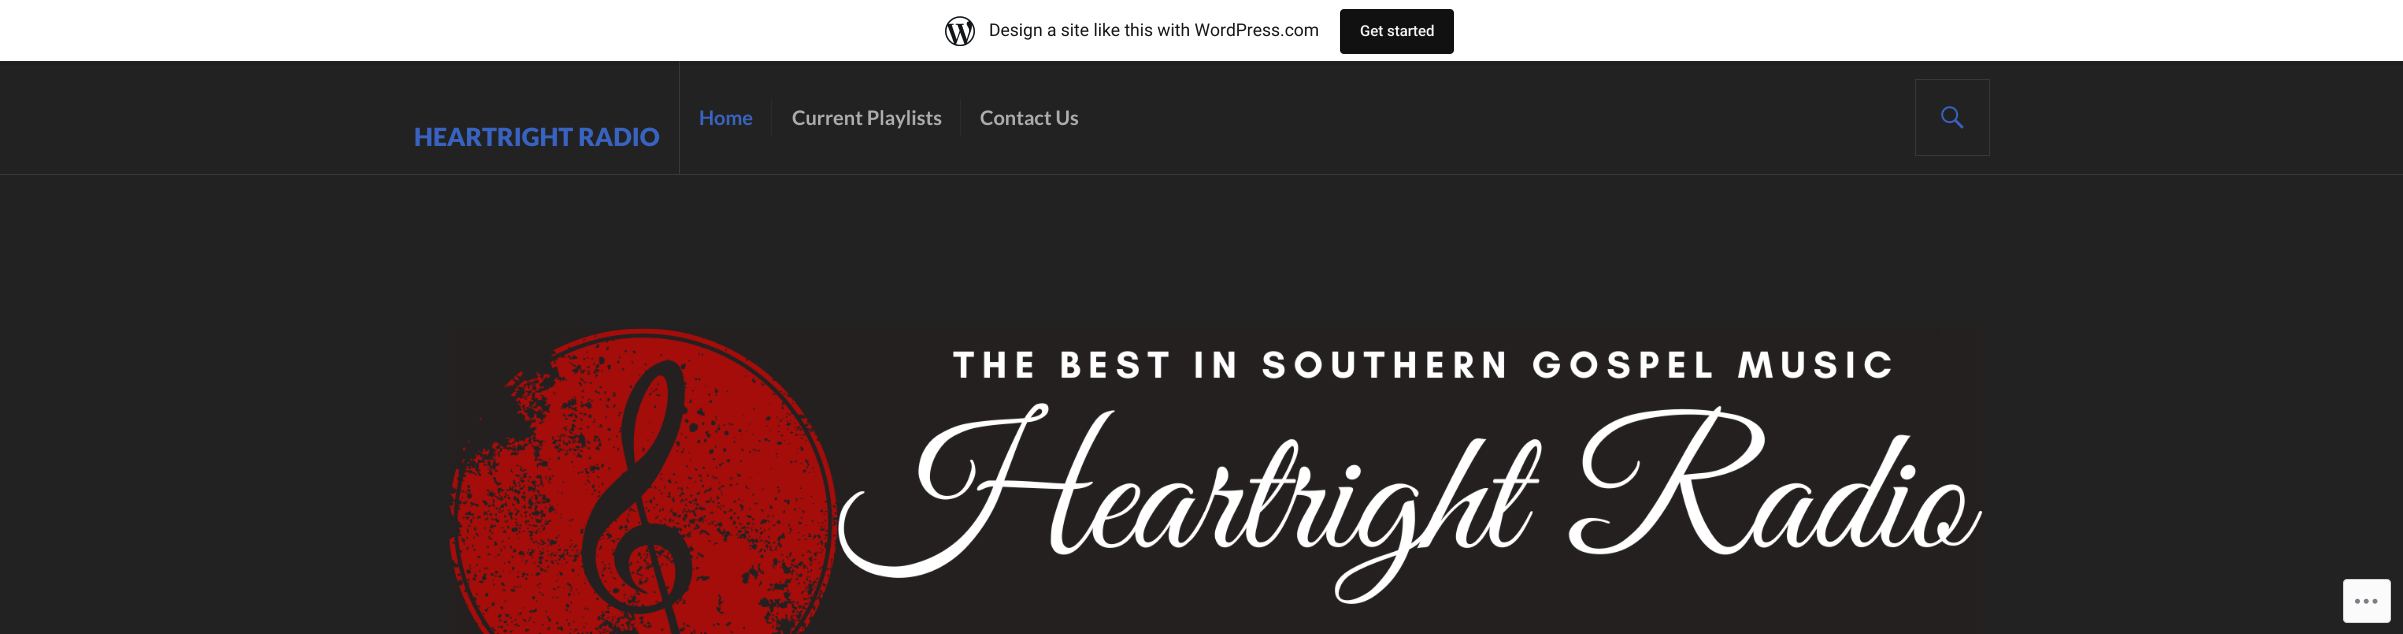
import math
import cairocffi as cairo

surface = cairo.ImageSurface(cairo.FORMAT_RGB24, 2403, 634)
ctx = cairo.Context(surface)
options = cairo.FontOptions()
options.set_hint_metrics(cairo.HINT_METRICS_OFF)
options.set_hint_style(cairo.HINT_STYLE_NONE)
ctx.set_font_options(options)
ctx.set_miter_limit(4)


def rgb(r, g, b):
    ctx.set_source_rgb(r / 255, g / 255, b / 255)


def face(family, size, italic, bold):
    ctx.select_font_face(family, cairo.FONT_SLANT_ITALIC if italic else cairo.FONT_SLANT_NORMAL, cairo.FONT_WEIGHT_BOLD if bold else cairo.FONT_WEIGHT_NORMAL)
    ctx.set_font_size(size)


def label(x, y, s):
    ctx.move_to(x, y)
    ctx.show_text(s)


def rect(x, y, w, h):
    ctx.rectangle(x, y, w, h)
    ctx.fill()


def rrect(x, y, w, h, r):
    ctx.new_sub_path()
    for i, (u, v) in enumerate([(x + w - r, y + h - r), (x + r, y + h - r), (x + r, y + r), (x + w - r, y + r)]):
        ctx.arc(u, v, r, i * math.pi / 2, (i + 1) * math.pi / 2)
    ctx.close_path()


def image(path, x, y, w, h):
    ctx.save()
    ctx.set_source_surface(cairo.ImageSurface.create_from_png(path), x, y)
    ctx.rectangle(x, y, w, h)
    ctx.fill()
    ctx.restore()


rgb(34, 34, 34)
ctx.paint()
rgb(56, 56, 56)
rect(679, 61, 1, 113)
ctx.set_source_rgba(0, 0, 0, 0.08)
ctx.new_path()
ctx.move_to(1, 61)
ctx.line_to(1, 65)
ctx.line_to(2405, 65)
ctx.line_to(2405, 4)
ctx.line_to(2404, 4)
ctx.line_to(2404, 61)
ctx.close_path()
ctx.fill()
rgb(255, 255, 255)
rect(0, 0, 2403, 61)
image('image0.png', 945, 16, 30, 30)
face('Roboto', 17.5, 0, 0)
rgb(23, 23, 23)
label(989, 36, 'Design a site like this with WordPress.com')
rgb(17, 17, 17)
rrect(1340, 9, 114, 45, 4)
ctx.fill()
face('Roboto Medium', 15, 0, 0)
rgb(246, 247, 247)
label(1360, 36, 'Get started')
rgb(56, 56, 56)
rect(0, 174, 2403, 1)
face('Lato', 20, 0, 1)
rgb(56, 99, 193)
label(699, 125, 'Home')
rgb(43, 43, 43)
rect(771, 99, 1, 37)
rgb(173, 173, 173)
label(792, 125, 'Current Playlists')
rgb(43, 43, 43)
rect(960, 99, 1, 37)
rgb(173, 173, 173)
label(980, 125, 'Contact Us')
ctx.rectangle(1915.5, 79.5, 74, 76)
rgb(56, 56, 56)
ctx.set_line_width(1)
ctx.stroke()
image('image1.png', 1941, 106, 23, 23)
face('Lato Black', 25, 0, 0)
rgb(56, 99, 193)
label(414, 146, 'HEARTRIGHT RADIO')
image('image2.png', 449, 328, 1534, 306)
rgb(251, 251, 251)
rrect(2343.5, 579.5, 47, 43, 3.5)
ctx.fill_preserve()
rgb(216, 216, 218)
ctx.stroke()
image('image3.png', 2355, 598, 23, 6)
surface.write_to_png('render.png')
